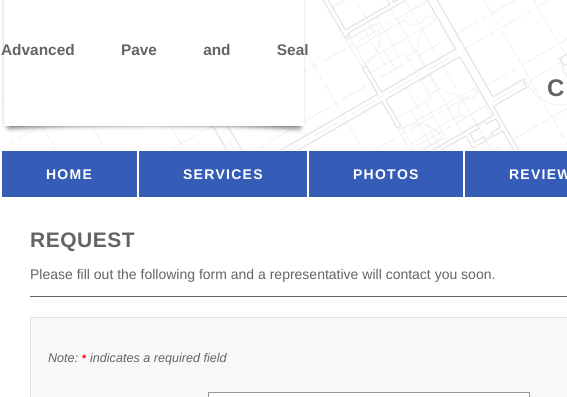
import math
import cairocffi as cairo

surface = cairo.ImageSurface(cairo.FORMAT_RGB24, 567, 397)
ctx = cairo.Context(surface)
options = cairo.FontOptions()
options.set_hint_metrics(cairo.HINT_METRICS_OFF)
options.set_hint_style(cairo.HINT_STYLE_NONE)
ctx.set_font_options(options)
ctx.set_miter_limit(4)


def rgb(r, g, b):
    ctx.set_source_rgb(r / 255, g / 255, b / 255)


def face(family, size, italic, bold):
    ctx.select_font_face(family, cairo.FONT_SLANT_ITALIC if italic else cairo.FONT_SLANT_NORMAL, cairo.FONT_WEIGHT_BOLD if bold else cairo.FONT_WEIGHT_NORMAL)
    ctx.set_font_size(size)


def label(x, y, s):
    ctx.move_to(x, y)
    ctx.show_text(s)


def tracked(x, y, s, letter, word):
    ctx.move_to(x, y)
    for ch in s:
        ctx.show_text(ch)
        ctx.rel_move_to(letter + word * (ch == ' '), 0)


def rect(x, y, w, h):
    ctx.rectangle(x, y, w, h)
    ctx.fill()


def image(path, x, y, w, h):
    ctx.save()
    ctx.set_source_surface(cairo.ImageSurface.create_from_png(path), x, y)
    ctx.rectangle(x, y, w, h)
    ctx.fill()
    ctx.restore()


rgb(255, 255, 255)
ctx.paint()
image('image0.png', 0, 0, 567, 150)
image('image1.png', 1, 0, 305, 133)
face('Liberation Sans', 15.4, 0, 1)
rgb(97, 101, 100)
tracked(1, 55, 'Advanced Pave and Seal', 0, 42)
face('Liberation Sans', 24, 0, 1)
tracked(547, 96, 'C', 1, 0)
rgb(53, 92, 182)
rect(2, 151, 565, 46)
rgb(255, 255, 255)
rect(137, 151, 2, 46)
face('Liberation Sans', 14, 0, 1)
tracked(46, 179, 'HOME', 1.25, 0)
rect(307, 151, 2, 46)
tracked(183, 179, 'SERVICES', 1.25, 0)
rect(463, 151, 2, 46)
tracked(353, 179, 'PHOTOS', 1.25, 0)
tracked(509, 179, 'REVIEW', 1.25, 0)
face('Liberation Sans', 21, 0, 1)
rgb(97, 101, 100)
tracked(30, 247, 'REQUEST', 0.5, 0)
face('Liberation Sans', 14, 0, 0)
label(30, 279, 'Please fill out the following form and a representative will contact you soon.')
rgb(100, 102, 101)
rect(30, 296, 537, 1)
rgb(248, 248, 248)
ctx.rectangle(30.5, 317.5, 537, 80)
ctx.fill_preserve()
rgb(226, 226, 226)
ctx.set_line_width(1)
ctx.stroke()
face('Liberation Sans', 12.6, 1, 0)
rgb(97, 101, 100)
label(48, 362, 'Note:')
face('Liberation Sans', 11, 0, 1)
rgb(255, 0, 0)
label(82, 362, '*')
face('Liberation Sans', 12.6, 1, 0)
rgb(97, 101, 100)
label(90, 362, 'indicates a required field')
rgb(255, 255, 255)
ctx.rectangle(208.5, 392.5, 321, 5)
ctx.fill_preserve()
rgb(153, 153, 153)
ctx.stroke()
surface.write_to_png('render.png')
